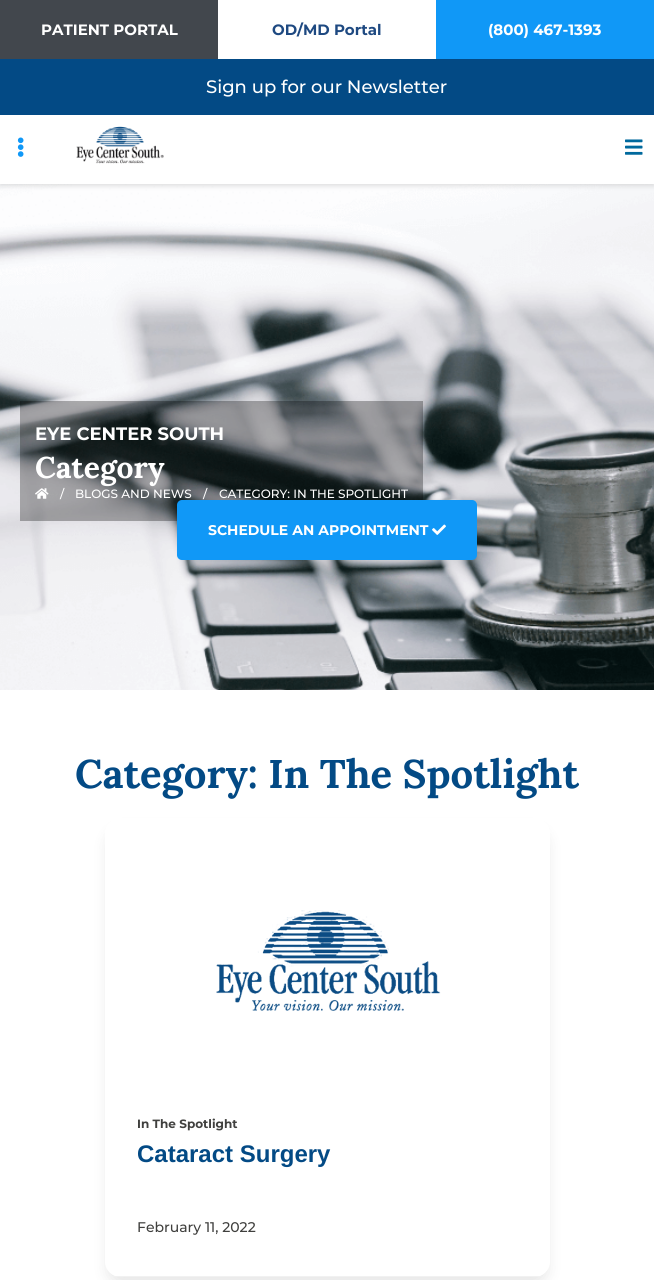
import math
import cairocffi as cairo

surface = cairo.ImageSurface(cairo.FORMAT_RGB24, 654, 1280)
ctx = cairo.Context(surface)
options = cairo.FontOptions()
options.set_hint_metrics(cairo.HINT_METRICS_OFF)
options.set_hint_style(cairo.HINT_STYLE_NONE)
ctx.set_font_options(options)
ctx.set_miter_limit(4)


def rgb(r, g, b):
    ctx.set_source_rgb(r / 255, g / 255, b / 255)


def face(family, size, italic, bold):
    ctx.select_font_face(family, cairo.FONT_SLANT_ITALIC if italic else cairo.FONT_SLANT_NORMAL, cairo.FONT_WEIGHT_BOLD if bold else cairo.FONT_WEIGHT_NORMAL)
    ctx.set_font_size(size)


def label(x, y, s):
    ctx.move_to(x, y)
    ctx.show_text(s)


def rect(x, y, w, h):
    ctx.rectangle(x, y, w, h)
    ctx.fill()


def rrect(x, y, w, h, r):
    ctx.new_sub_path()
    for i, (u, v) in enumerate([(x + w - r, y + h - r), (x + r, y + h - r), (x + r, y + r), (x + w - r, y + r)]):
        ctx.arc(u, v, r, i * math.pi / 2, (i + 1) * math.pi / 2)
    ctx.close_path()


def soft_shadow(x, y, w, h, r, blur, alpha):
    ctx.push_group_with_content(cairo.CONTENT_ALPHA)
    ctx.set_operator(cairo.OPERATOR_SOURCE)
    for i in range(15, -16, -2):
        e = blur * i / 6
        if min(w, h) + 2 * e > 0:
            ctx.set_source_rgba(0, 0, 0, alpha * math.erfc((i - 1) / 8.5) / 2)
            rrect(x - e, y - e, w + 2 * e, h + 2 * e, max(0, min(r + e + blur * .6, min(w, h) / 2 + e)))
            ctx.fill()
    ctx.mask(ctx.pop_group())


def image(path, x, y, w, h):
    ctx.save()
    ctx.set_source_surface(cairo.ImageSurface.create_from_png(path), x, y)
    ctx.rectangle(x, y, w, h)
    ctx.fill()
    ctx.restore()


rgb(255, 255, 255)
ctx.paint()
image('image3.png', 0, 184, 654, 506)
rgb(150, 150, 150)
soft_shadow(0, 2, 654, 184, 0, 2.5, 0.3)
rgb(255, 255, 255)
rect(0, 115, 654, 69)
rgb(16, 152, 247)
rect(436, 0, 218, 59)
rgb(66, 71, 77)
rect(0, 0, 218, 59)
face('Montserrat', 15, 0, 1)
rgb(255, 255, 255)
label(41, 35, 'PATIENT PORTAL')
rect(218, 0, 218, 59)
rgb(30, 73, 129)
label(272, 35, 'OD/MD Portal')
rgb(255, 255, 255)
label(488, 35, '(800) 467-1393')
rgb(3, 74, 133)
rect(0, 59, 654, 56)
face('Montserrat Medium', 18, 0, 0)
rgb(255, 255, 255)
label(206, 93, 'Sign up for our Newsletter')
image('image0.png', 17, 137, 7, 20)
image('image1.png', 76, 126, 88, 38)
image('image2.png', 625, 139, 18, 16)
ctx.set_source_rgba(0, 0, 0, 0.3)
rect(20, 401, 403, 120)
face('Montserrat', 18, 0, 1)
rgb(255, 255, 255)
label(35, 440, 'EYE CENTER SOUTH')
face('Lora', 30, 0, 1)
label(35, 478, 'Category')
image('image4.png', 35, 488, 14, 11)
face('Montserrat Medium', 12, 0, 0)
label(60, 498, '/')
label(75, 498, 'BLOGS AND NEWS')
label(203, 498, '/')
label(219, 498, 'CATEGORY: IN THE SPOTLIGHT')
rgb(16, 152, 247)
rrect(177, 500, 300, 60, 5)
ctx.fill()
face('Montserrat', 14, 0, 1)
rgb(255, 255, 255)
label(208, 535, 'SCHEDULE AN APPOINTMENT')
image('image5.png', 432, 524, 14, 11)
face('Lora', 40, 0, 1)
rgb(3, 74, 133)
label(75, 788, 'Category: In The Spotlight')
ctx.save()
ctx.set_fill_rule(cairo.FILL_RULE_EVEN_ODD)
ctx.new_path()
ctx.move_to(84, 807)
ctx.line_to(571, 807)
ctx.line_to(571, 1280)
ctx.line_to(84, 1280)
ctx.close_path()
ctx.move_to(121, 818)
ctx.line_to(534, 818)
ctx.curve_to(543, 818, 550, 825, 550, 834)
ctx.line_to(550, 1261)
ctx.curve_to(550, 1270, 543, 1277, 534, 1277)
ctx.line_to(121, 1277)
ctx.curve_to(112, 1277, 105, 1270, 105, 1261)
ctx.line_to(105, 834)
ctx.curve_to(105, 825, 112, 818, 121, 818)
ctx.close_path()
ctx.clip()
rgb(0, 0, 0)
soft_shadow(108, 831, 439, 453, 13, 7.5, 0.1)
ctx.restore()
rgb(241, 241, 241)
rect(113, 1276, 429, 1)
image('image6.png', 216, 910, 225, 101)
face('Montserrat', 12, 0, 1)
rgb(64, 64, 62)
label(137, 1128, 'In The Spotlight')
face('Liberation Sans', 24, 0, 1)
rgb(3, 74, 133)
label(137, 1162, 'Cataract Surgery')
face('Montserrat Medium', 14, 0, 0)
rgb(64, 64, 62)
label(137, 1232, 'February 11, 2022')
surface.write_to_png('render.png')
